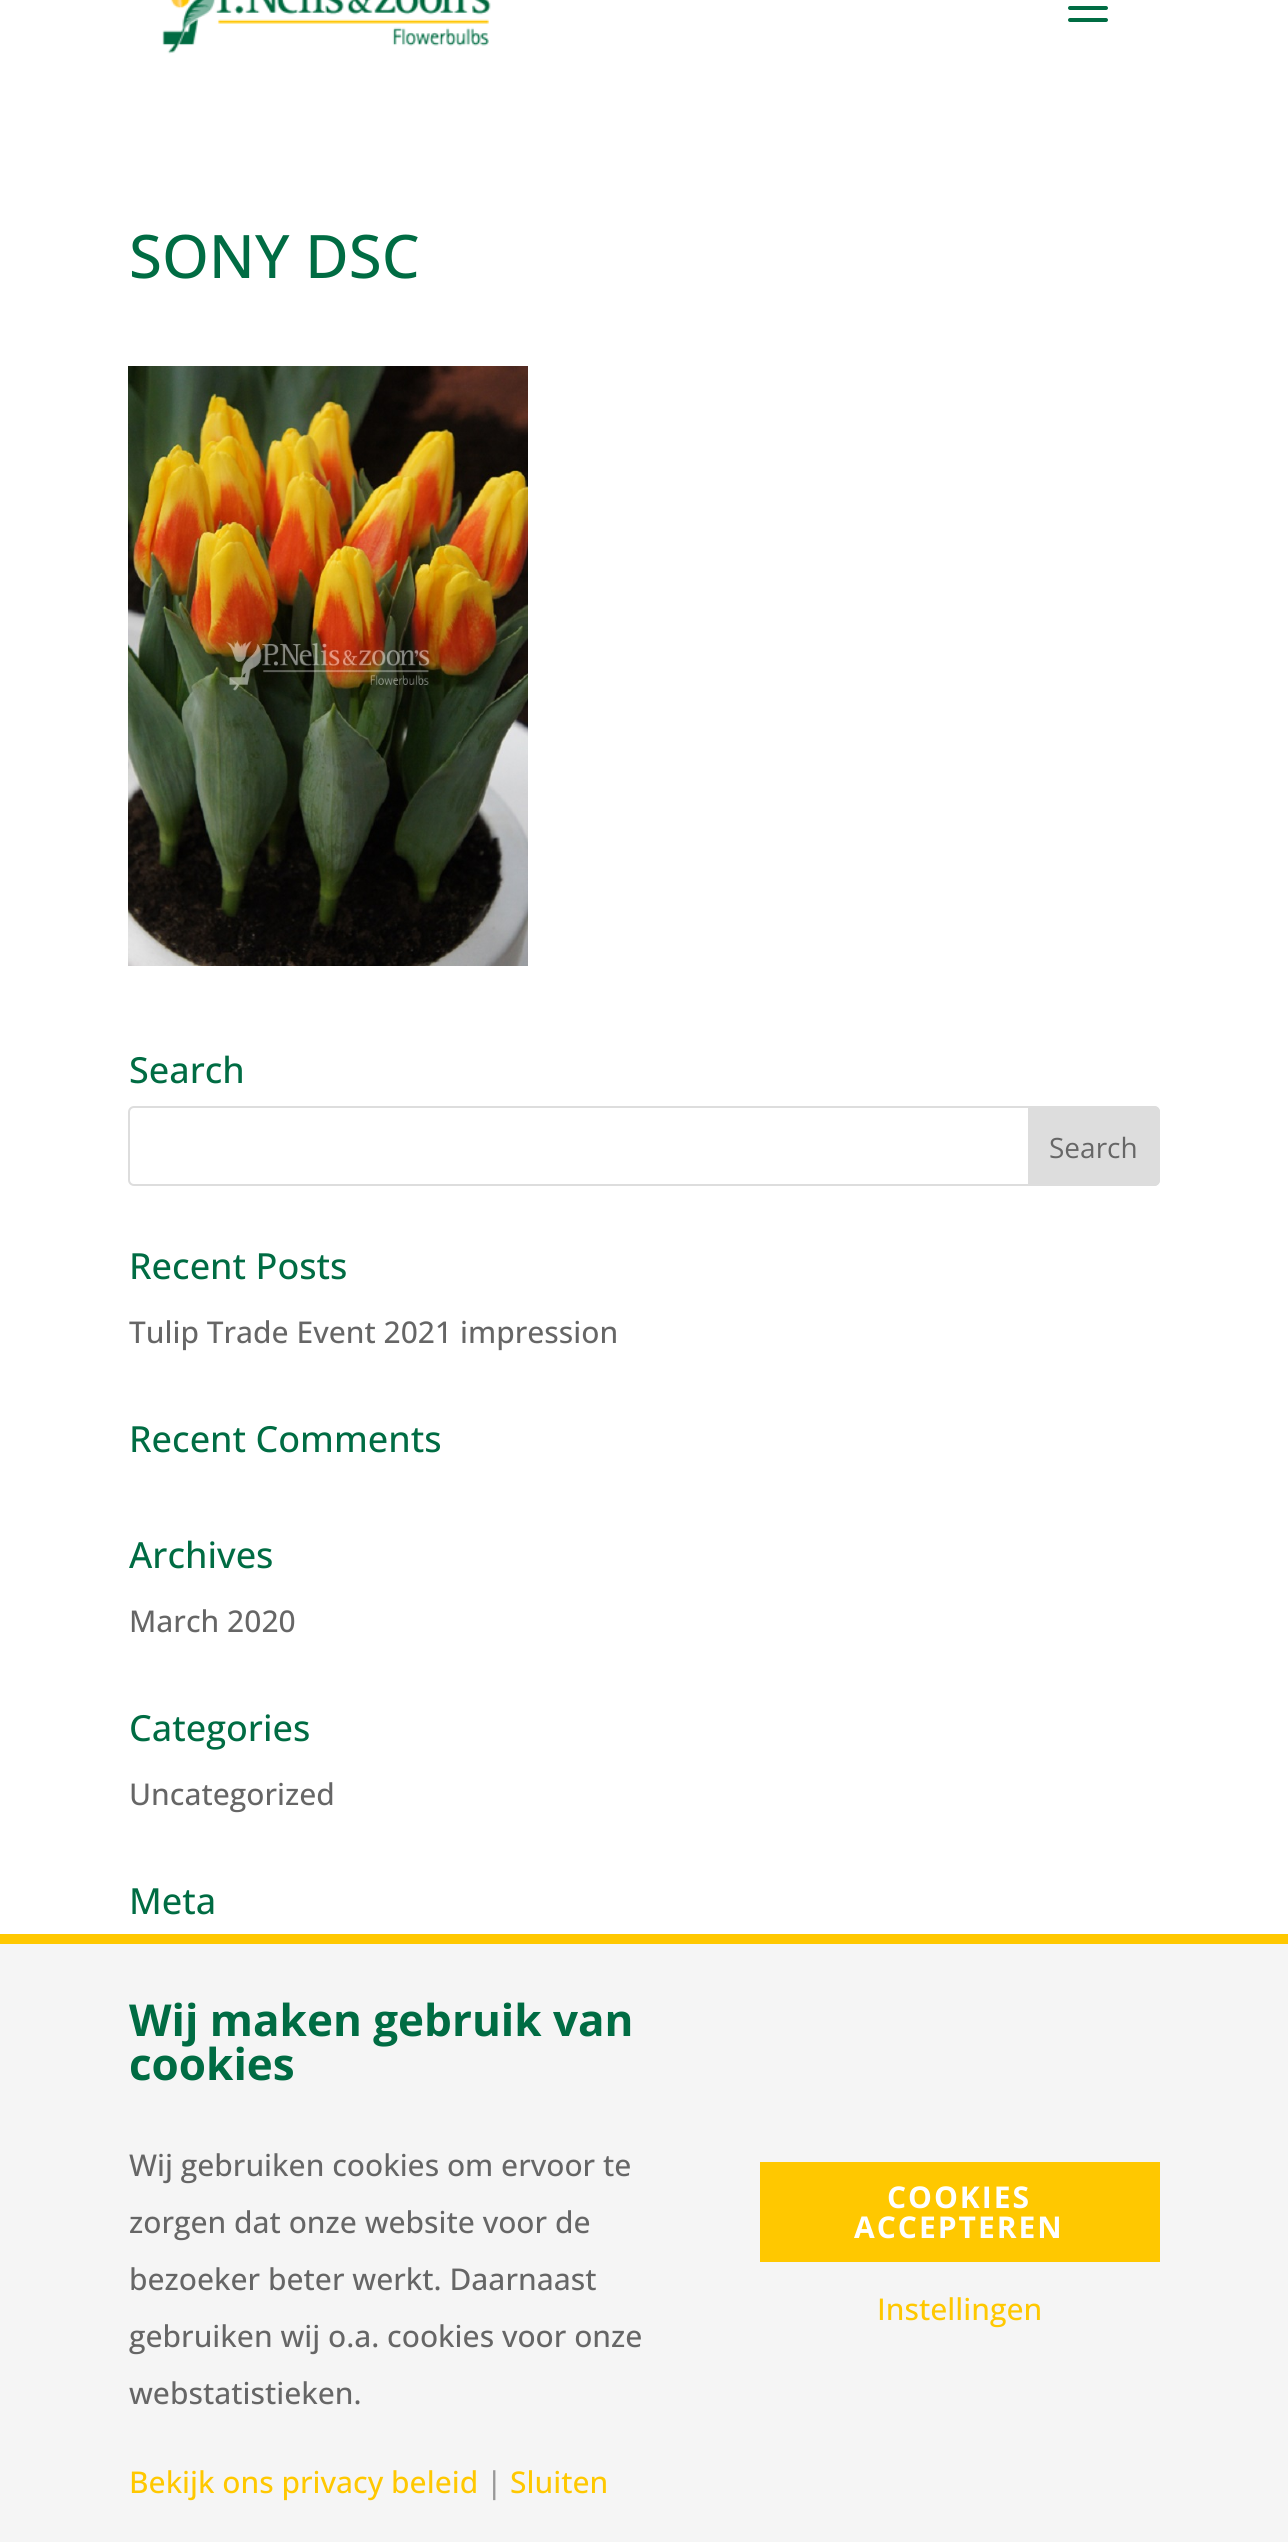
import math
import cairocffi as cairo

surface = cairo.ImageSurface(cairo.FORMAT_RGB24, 1288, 2542)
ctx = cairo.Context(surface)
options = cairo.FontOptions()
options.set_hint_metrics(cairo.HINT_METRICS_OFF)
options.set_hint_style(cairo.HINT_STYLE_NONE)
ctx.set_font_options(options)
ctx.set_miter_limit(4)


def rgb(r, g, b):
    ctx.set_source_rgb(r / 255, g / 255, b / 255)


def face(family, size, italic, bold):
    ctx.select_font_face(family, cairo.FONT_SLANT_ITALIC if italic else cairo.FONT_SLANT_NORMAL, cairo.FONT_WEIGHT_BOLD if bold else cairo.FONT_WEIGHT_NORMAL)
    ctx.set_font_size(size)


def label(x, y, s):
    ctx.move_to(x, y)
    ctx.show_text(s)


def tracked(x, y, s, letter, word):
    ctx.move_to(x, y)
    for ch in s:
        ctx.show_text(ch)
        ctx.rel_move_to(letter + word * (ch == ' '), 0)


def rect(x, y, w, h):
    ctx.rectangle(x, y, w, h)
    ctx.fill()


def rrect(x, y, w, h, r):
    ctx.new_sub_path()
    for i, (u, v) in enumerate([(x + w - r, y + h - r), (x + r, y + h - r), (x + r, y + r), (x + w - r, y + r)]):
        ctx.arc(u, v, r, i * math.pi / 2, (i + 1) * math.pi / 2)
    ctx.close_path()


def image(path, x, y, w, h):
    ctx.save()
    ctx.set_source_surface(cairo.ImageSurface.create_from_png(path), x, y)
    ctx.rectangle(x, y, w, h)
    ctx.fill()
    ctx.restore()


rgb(255, 255, 255)
ctx.paint()
image('image0.png', 162, 0, 329, 54)
image('image1.png', 1068, 6, 40, 16)
face('Open Sans Medium', 60, 0, 0)
rgb(0, 108, 67)
label(129, 278, 'SONY DSC')
image('image2.png', 128, 366, 400, 600)
face('Open Sans Medium', 36, 0, 0)
label(129, 1083, 'Search')
rrect(129, 1107, 1030, 78, 5)
rgb(221, 221, 221)
ctx.stroke()
ctx.new_path()
ctx.move_to(1029, 1107)
ctx.line_to(1154, 1107)
ctx.curve_to(1157, 1107, 1159, 1109, 1159, 1112)
ctx.line_to(1159, 1180)
ctx.curve_to(1159, 1183, 1157, 1185, 1154, 1185)
ctx.line_to(1029, 1185)
ctx.close_path()
ctx.fill_preserve()
ctx.stroke()
face('Open Sans', 28, 0, 0)
rgb(102, 102, 102)
label(1049, 1158, 'Search')
face('Open Sans Medium', 36, 0, 0)
rgb(0, 108, 67)
label(129, 1279, 'Recent Posts')
face('Open Sans Medium', 30, 0, 0)
rgb(102, 102, 102)
label(129, 1343, 'Tulip Trade Event 2021 impression')
face('Open Sans Medium', 36, 0, 0)
rgb(0, 108, 67)
label(129, 1452, 'Recent Comments')
label(129, 1568, 'Archives')
face('Open Sans Medium', 30, 0, 0)
rgb(102, 102, 102)
label(129, 1632, 'March 2020')
face('Open Sans Medium', 36, 0, 0)
rgb(0, 108, 67)
label(129, 1741, 'Categories')
face('Open Sans Medium', 30, 0, 0)
rgb(102, 102, 102)
label(129, 1805, 'Uncategorized')
face('Open Sans Medium', 36, 0, 0)
rgb(0, 108, 67)
label(129, 1914, 'Meta')
rgb(245, 245, 245)
rect(0, 1944, 1288, 598)
rgb(255, 200, 0)
rect(0, 1934, 1288, 10)
face('Open Sans', 44, 0, 1)
rgb(0, 108, 67)
label(129, 2036, 'Wij maken gebruik van')
label(129, 2080, 'cookies')
face('Open Sans Medium', 30, 0, 0)
rgb(102, 102, 102)
label(129, 2176, 'Wij gebruiken cookies om ervoor te')
label(129, 2233, 'zorgen dat onze website voor de')
label(129, 2290, 'bezoeker beter werkt. Daarnaast')
label(129, 2347, 'gebruiken wij o.a. cookies voor onze')
label(129, 2404, 'webstatistieken.')
rgb(255, 200, 0)
label(129, 2493, 'Bekijk ons privacy beleid')
rgb(152, 152, 152)
label(486, 2493, '|')
rgb(255, 200, 0)
label(510, 2493, 'Sluiten')
rect(760, 2162, 400, 100)
face('Open Sans', 30, 0, 1)
rgb(255, 255, 255)
tracked(887, 2208, 'COOKIES', 2, 0)
tracked(854, 2238, 'ACCEPTEREN', 2, 0)
face('Open Sans Medium', 30, 0, 0)
rgb(255, 200, 0)
label(877, 2320, 'Instellingen')
surface.write_to_png('render.png')
